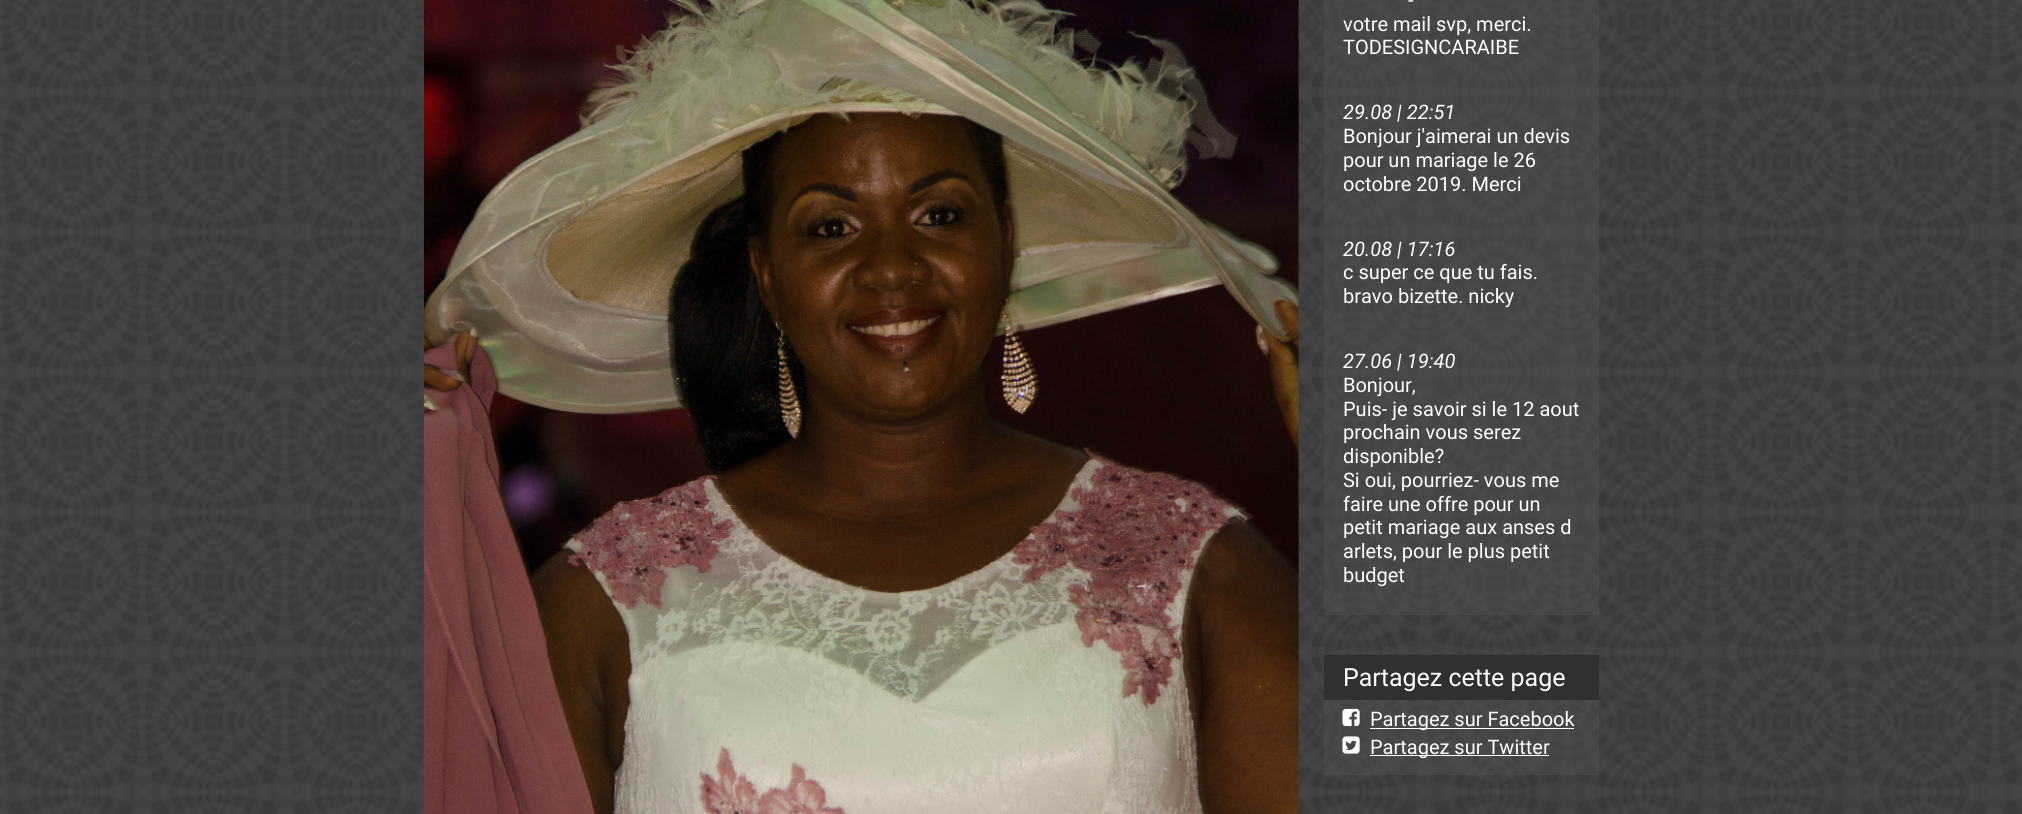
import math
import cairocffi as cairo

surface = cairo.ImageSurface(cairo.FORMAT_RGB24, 2022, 814)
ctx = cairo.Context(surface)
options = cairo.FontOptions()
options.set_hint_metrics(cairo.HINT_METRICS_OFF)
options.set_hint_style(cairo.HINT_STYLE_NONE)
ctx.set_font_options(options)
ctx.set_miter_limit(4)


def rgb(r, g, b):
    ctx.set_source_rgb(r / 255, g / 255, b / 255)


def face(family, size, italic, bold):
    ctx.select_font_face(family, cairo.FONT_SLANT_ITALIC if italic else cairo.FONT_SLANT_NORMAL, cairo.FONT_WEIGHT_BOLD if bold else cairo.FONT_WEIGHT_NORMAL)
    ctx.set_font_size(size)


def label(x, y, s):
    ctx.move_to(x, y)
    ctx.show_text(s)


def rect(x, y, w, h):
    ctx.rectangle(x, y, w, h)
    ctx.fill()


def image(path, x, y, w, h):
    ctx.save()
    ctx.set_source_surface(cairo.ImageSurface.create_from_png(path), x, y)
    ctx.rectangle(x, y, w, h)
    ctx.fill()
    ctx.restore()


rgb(59, 59, 59)
ctx.paint()
image('image0.png', 0, 0, 2022, 814)
image('image1.png', 423, 0, 876, 814)
ctx.set_source_rgba(0.325, 0.325, 0.325, 0.4)
rect(1324, 0, 275, 615)
face('Roboto', 20, 0, 0)
rgb(255, 255, 255)
label(1408, 7, '-')
label(1343, 31, 'votre mail svp, merci.')
label(1343, 54, 'TODESIGNCARAIBE')
face('Roboto', 20, 1, 0)
label(1343, 119, '29.08 | 22:51')
face('Roboto', 20, 0, 0)
label(1343, 143, 'Bonjour j\'aimerai un devis')
label(1343, 167, 'pour un mariage le 26')
label(1343, 191, 'octobre 2019. Merci')
face('Roboto', 20, 1, 0)
label(1343, 256, '20.08 | 17:16')
face('Roboto', 20, 0, 0)
label(1343, 279, 'c super ce que tu fais.')
label(1343, 303, 'bravo bizette. nicky')
face('Roboto', 20, 1, 0)
label(1343, 368, '27.06 | 19:40')
face('Roboto', 20, 0, 0)
label(1343, 392, 'Bonjour,')
label(1343, 416, 'Puis- je savoir si le 12 aout')
label(1343, 439, 'prochain vous serez')
label(1343, 463, 'disponible?')
label(1343, 487, 'Si oui, pourriez- vous me')
label(1343, 511, 'faire une offre pour un')
label(1343, 534, 'petit mariage aux anses d')
label(1343, 558, 'arlets, pour le plus petit')
label(1343, 582, 'budget')
rgb(48, 48, 48)
rect(1324, 655, 275, 45)
face('Roboto', 25, 0, 0)
rgb(255, 255, 255)
label(1343, 686, 'Partagez cette page')
ctx.set_source_rgba(0.325, 0.325, 0.325, 0.4)
rect(1324, 700, 275, 75)
image('image2.png', 1342, 708, 18, 19)
rgb(255, 255, 255)
rect(1370, 728, 204, 1)
face('Roboto', 20, 0, 0)
label(1370, 726, 'Partagez sur Facebook')
image('image3.png', 1342, 736, 18, 18)
rect(1370, 755, 179, 1)
label(1370, 754, 'Partagez sur Twitter')
surface.write_to_png('render.png')
